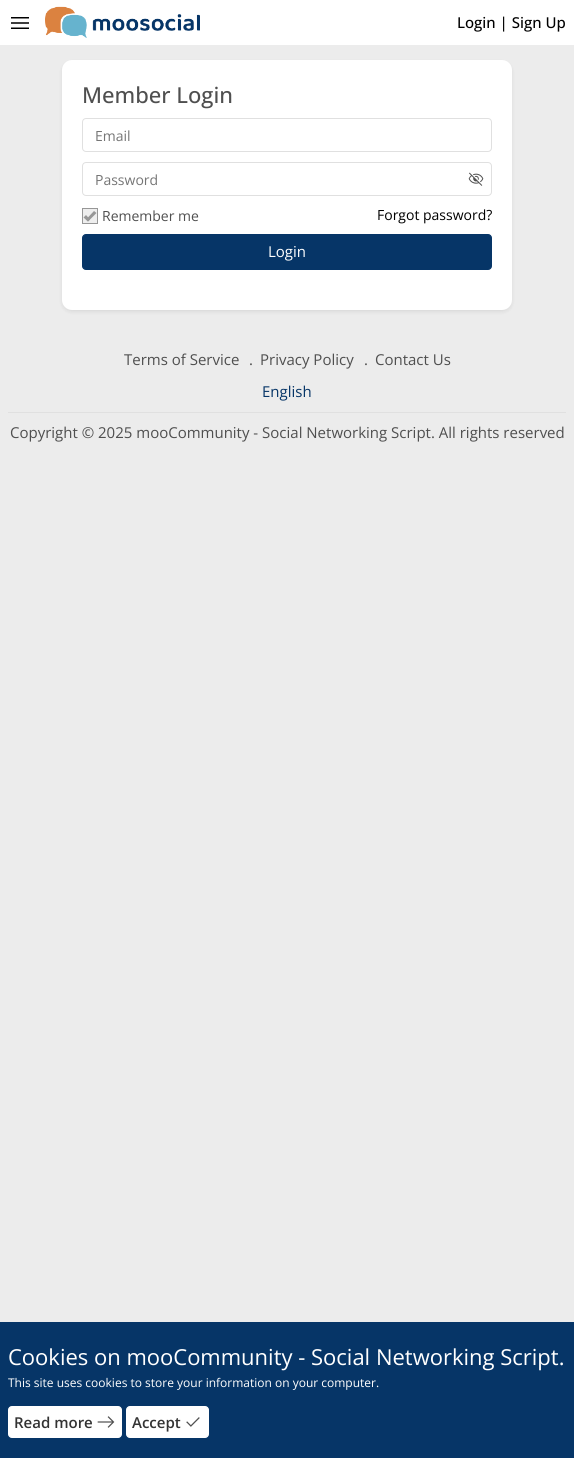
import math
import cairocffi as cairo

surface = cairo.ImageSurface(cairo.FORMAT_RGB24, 574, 1458)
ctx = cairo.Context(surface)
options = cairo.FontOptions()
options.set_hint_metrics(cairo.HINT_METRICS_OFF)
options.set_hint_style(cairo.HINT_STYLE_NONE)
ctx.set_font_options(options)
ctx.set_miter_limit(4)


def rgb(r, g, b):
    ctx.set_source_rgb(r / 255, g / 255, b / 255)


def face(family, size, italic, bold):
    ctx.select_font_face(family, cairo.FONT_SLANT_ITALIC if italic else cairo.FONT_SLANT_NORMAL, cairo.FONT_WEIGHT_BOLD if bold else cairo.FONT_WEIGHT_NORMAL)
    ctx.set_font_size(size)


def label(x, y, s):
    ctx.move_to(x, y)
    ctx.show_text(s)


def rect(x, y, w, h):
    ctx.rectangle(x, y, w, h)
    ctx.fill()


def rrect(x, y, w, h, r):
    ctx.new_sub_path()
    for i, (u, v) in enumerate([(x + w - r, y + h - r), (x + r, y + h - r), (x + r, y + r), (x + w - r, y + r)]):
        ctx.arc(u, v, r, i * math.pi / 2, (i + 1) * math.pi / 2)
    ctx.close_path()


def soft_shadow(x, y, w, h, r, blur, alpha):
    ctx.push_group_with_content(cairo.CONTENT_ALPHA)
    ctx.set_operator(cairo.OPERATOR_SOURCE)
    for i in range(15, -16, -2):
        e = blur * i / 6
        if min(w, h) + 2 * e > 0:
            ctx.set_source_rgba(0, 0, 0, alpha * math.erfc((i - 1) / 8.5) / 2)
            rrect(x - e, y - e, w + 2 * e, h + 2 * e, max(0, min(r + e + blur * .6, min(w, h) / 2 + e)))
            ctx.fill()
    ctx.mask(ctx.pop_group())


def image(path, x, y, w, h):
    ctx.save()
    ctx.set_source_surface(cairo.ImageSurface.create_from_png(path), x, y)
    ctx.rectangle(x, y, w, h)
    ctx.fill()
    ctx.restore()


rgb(236, 236, 236)
ctx.paint()
rgb(255, 255, 255)
rect(0, 0, 574, 45)
image('image0.png', 11, 17, 18, 12)
image('image1.png', 45, 6, 155, 32)
face('Open Sans Medium', 15, 0, 0)
rgb(0, 0, 0)
label(457, 28, 'Login | Sign Up')
rgb(0, 0, 0)
soft_shadow(62, 62, 450, 250, 10, 2, 0.08)
rgb(255, 255, 255)
rrect(62, 60, 450, 250, 10)
ctx.fill()
face('Open Sans Medium', 22, 0, 0)
rgb(79, 79, 79)
label(82, 103, 'Member Login')
rrect(82.5, 118.5, 409, 33, 3.5)
rgb(224, 224, 224)
ctx.set_line_width(1)
ctx.stroke()
face('Open Sans', 14, 0, 0)
rgb(117, 117, 117)
label(95, 141, 'Email')
rrect(82.5, 162.5, 409, 33, 3.5)
rgb(224, 224, 224)
ctx.stroke()
rgb(117, 117, 117)
label(95, 185, 'Password')
image('image2.png', 468, 172, 16, 14)
rgb(238, 238, 238)
ctx.rectangle(82.5, 208.5, 15, 15)
ctx.fill_preserve()
rgb(151, 151, 151)
ctx.stroke()
ctx.new_path()
ctx.move_to(94, 211)
ctx.line_to(96.5, 213)
ctx.line_to(88, 221.5)
ctx.line_to(86, 219.5)
ctx.close_path()
ctx.fill()
ctx.new_path()
ctx.move_to(86, 215)
ctx.line_to(90, 219.5)
ctx.line_to(88, 221.5)
ctx.line_to(83.5, 217.5)
ctx.close_path()
ctx.fill()
rgb(79, 79, 79)
label(102, 221, 'Remember me')
rgb(0, 0, 0)
label(377, 220, 'Forgot password?')
rgb(6, 53, 103)
rrect(82.5, 234.5, 409, 35, 3.5)
ctx.fill_preserve()
ctx.stroke()
face('Open Sans', 15, 0, 0)
rgb(255, 255, 255)
label(268, 257, 'Login')
rgb(224, 224, 224)
rect(8, 412, 558, 1)
rgb(79, 79, 79)
label(124, 365, 'Terms of Service')
label(249, 365, '.')
label(260, 365, 'Privacy Policy')
label(364, 365, '.')
label(375, 365, 'Contact Us')
rgb(6, 53, 103)
label(262, 397, 'English')
rgb(79, 79, 79)
label(10, 438, 'Copyright © 2025 mooCommunity - Social Networking Script. All rights reserved')
rgb(6, 53, 103)
rect(0, 1322, 574, 136)
face('Open Sans', 22, 0, 0)
rgb(255, 255, 255)
label(8, 1365, 'Cookies on mooCommunity - Social Networking Script.')
face('Open Sans', 12, 0, 0)
label(8, 1387, 'This site uses cookies to store your information on your computer.')
rrect(8.5, 1406.5, 113, 31, 3.5)
ctx.fill_preserve()
ctx.stroke()
face('Open Sans SemiBold', 15, 0, 0)
rgb(51, 51, 51)
label(14, 1428, 'Read more')
image('image3.png', 97, 1416, 18, 12)
rgb(255, 255, 255)
rrect(126.5, 1406.5, 82, 31, 3.5)
ctx.fill_preserve()
ctx.stroke()
rgb(51, 51, 51)
label(132, 1428, 'Accept')
image('image4.png', 186, 1417, 14, 10)
surface.write_to_png('render.png')
